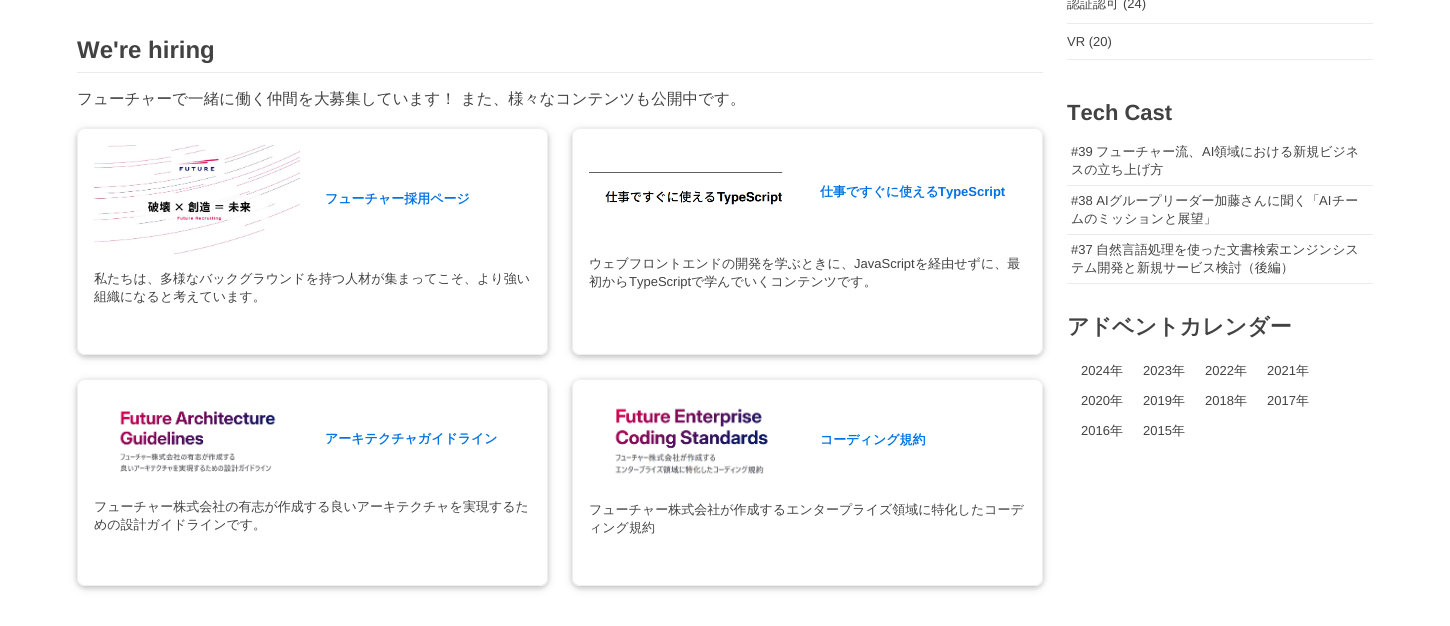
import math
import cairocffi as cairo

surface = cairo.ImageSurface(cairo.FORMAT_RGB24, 1450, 626)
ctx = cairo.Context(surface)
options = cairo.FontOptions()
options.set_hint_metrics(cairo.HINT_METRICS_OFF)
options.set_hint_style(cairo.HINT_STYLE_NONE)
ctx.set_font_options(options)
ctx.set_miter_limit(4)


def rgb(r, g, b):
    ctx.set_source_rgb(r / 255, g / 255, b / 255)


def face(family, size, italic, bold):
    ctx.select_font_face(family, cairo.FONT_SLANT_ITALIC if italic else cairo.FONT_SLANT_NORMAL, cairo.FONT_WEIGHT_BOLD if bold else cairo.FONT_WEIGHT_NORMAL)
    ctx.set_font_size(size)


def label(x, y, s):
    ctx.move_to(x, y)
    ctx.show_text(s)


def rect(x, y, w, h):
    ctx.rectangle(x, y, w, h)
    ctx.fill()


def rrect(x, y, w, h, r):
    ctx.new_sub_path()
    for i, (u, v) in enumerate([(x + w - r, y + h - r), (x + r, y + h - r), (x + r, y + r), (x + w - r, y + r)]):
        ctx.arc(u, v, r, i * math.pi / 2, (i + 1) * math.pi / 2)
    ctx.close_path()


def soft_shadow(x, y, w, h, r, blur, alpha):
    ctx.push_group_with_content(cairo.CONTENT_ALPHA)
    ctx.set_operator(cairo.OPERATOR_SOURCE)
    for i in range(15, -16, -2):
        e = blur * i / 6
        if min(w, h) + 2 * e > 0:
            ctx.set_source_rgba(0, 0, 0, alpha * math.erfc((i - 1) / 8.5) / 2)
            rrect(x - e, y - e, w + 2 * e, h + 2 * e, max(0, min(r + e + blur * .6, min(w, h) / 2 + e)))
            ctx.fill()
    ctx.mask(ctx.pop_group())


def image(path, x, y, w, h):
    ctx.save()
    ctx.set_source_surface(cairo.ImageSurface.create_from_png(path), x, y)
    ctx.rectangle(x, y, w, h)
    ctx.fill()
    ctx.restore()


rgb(255, 255, 255)
ctx.paint()
rgb(236, 235, 235)
rect(77, 72, 966, 1)
face('Liberation Sans', 24, 0, 1)
rgb(66, 66, 66)
label(77, 58, 'We\'re hiring')
face('WenQuanYi Zen Hei Medium', 15.6, 0, 0)
label(77, 104, 'フューチャーで一緒に働く仲間を大募集しています！ また、様々なコンテンツも公開中です。')
ctx.save()
ctx.set_fill_rule(cairo.FILL_RULE_EVEN_ODD)
ctx.new_path()
ctx.move_to(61, 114)
ctx.line_to(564, 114)
ctx.line_to(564, 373)
ctx.line_to(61, 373)
ctx.close_path()
ctx.move_to(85, 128)
ctx.line_to(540, 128)
ctx.curve_to(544.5, 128, 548, 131.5, 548, 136)
ctx.line_to(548, 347)
ctx.curve_to(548, 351.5, 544.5, 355, 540, 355)
ctx.line_to(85, 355)
ctx.curve_to(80.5, 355, 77, 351.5, 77, 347)
ctx.line_to(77, 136)
ctx.curve_to(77, 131.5, 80.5, 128, 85, 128)
ctx.close_path()
ctx.clip()
rgb(0, 0, 0)
soft_shadow(77, 130, 471, 227, 8, 5, 0.12)
ctx.restore()
ctx.save()
ctx.set_fill_rule(cairo.FILL_RULE_EVEN_ODD)
ctx.new_path()
ctx.move_to(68, 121)
ctx.line_to(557, 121)
ctx.line_to(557, 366)
ctx.line_to(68, 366)
ctx.close_path()
ctx.move_to(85, 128)
ctx.line_to(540, 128)
ctx.curve_to(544.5, 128, 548, 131.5, 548, 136)
ctx.line_to(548, 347)
ctx.curve_to(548, 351.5, 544.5, 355, 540, 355)
ctx.line_to(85, 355)
ctx.curve_to(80.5, 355, 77, 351.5, 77, 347)
ctx.line_to(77, 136)
ctx.curve_to(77, 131.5, 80.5, 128, 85, 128)
ctx.close_path()
ctx.clip()
rgb(0, 0, 0)
soft_shadow(77, 130, 471, 227, 8, 2.5, 0.16)
ctx.restore()
rrect(77.5, 128.5, 470, 226, 7.5)
rgb(238, 238, 238)
ctx.set_line_width(1)
ctx.stroke()
image('image0.png', 94, 145, 206, 109)
face('WenQuanYi Zen Hei', 13, 0, 1)
rgb(0, 114, 229)
label(325, 203, 'フューチャー採用ページ')
face('WenQuanYi Zen Hei Medium', 13, 0, 0)
rgb(66, 66, 66)
label(94, 283, '私たちは、多様なバックグラウンドを持つ人材が集まってこそ、より強い')
label(94, 301, '組織になると考えています。')
ctx.save()
ctx.set_fill_rule(cairo.FILL_RULE_EVEN_ODD)
ctx.new_path()
ctx.move_to(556, 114)
ctx.line_to(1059, 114)
ctx.line_to(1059, 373)
ctx.line_to(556, 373)
ctx.close_path()
ctx.move_to(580, 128)
ctx.line_to(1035, 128)
ctx.curve_to(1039.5, 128, 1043, 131.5, 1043, 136)
ctx.line_to(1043, 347)
ctx.curve_to(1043, 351.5, 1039.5, 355, 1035, 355)
ctx.line_to(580, 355)
ctx.curve_to(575.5, 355, 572, 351.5, 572, 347)
ctx.line_to(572, 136)
ctx.curve_to(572, 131.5, 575.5, 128, 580, 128)
ctx.close_path()
ctx.clip()
rgb(0, 0, 0)
soft_shadow(572, 130, 471, 227, 8, 5, 0.12)
ctx.restore()
ctx.save()
ctx.set_fill_rule(cairo.FILL_RULE_EVEN_ODD)
ctx.new_path()
ctx.move_to(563, 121)
ctx.line_to(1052, 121)
ctx.line_to(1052, 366)
ctx.line_to(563, 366)
ctx.close_path()
ctx.move_to(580, 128)
ctx.line_to(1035, 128)
ctx.curve_to(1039.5, 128, 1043, 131.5, 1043, 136)
ctx.line_to(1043, 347)
ctx.curve_to(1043, 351.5, 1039.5, 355, 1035, 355)
ctx.line_to(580, 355)
ctx.curve_to(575.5, 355, 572, 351.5, 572, 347)
ctx.line_to(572, 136)
ctx.curve_to(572, 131.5, 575.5, 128, 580, 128)
ctx.close_path()
ctx.clip()
rgb(0, 0, 0)
soft_shadow(572, 130, 471, 227, 8, 2.5, 0.16)
ctx.restore()
rrect(572.5, 128.5, 470, 226, 7.5)
rgb(238, 238, 238)
ctx.stroke()
image('image1.png', 589, 172, 194, 33)
face('WenQuanYi Zen Hei', 13, 0, 1)
rgb(0, 114, 229)
label(820, 196, '仕事ですぐに使える')
face('Liberation Sans', 13, 0, 1)
label(938, 196, 'TypeScript')
face('WenQuanYi Zen Hei Medium', 13, 0, 0)
rgb(66, 66, 66)
label(589, 268, 'ウェブフロントエンドの開発を学ぶときに、')
face('Liberation Sans', 13, 0, 0)
label(854, 268, 'JavaScript')
face('WenQuanYi Zen Hei Medium', 13, 0, 0)
label(915, 268, 'を経由せずに、最')
label(589, 286, '初から')
face('Liberation Sans', 13, 0, 0)
label(629, 286, 'TypeScript')
face('WenQuanYi Zen Hei Medium', 13, 0, 0)
label(691, 286, 'で学んでいくコンテンツです。')
ctx.save()
ctx.set_fill_rule(cairo.FILL_RULE_EVEN_ODD)
ctx.new_path()
ctx.move_to(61, 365)
ctx.line_to(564, 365)
ctx.line_to(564, 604)
ctx.line_to(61, 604)
ctx.close_path()
ctx.move_to(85, 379)
ctx.line_to(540, 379)
ctx.curve_to(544.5, 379, 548, 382.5, 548, 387)
ctx.line_to(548, 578)
ctx.curve_to(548, 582.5, 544.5, 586, 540, 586)
ctx.line_to(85, 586)
ctx.curve_to(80.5, 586, 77, 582.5, 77, 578)
ctx.line_to(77, 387)
ctx.curve_to(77, 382.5, 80.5, 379, 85, 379)
ctx.close_path()
ctx.clip()
rgb(0, 0, 0)
soft_shadow(77, 381, 471, 207, 8, 5, 0.12)
ctx.restore()
ctx.save()
ctx.set_fill_rule(cairo.FILL_RULE_EVEN_ODD)
ctx.new_path()
ctx.move_to(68, 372)
ctx.line_to(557, 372)
ctx.line_to(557, 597)
ctx.line_to(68, 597)
ctx.close_path()
ctx.move_to(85, 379)
ctx.line_to(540, 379)
ctx.curve_to(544.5, 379, 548, 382.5, 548, 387)
ctx.line_to(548, 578)
ctx.curve_to(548, 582.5, 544.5, 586, 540, 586)
ctx.line_to(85, 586)
ctx.curve_to(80.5, 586, 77, 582.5, 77, 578)
ctx.line_to(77, 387)
ctx.curve_to(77, 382.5, 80.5, 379, 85, 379)
ctx.close_path()
ctx.clip()
rgb(0, 0, 0)
soft_shadow(77, 381, 471, 207, 8, 2.5, 0.16)
ctx.restore()
rrect(77.5, 379.5, 470, 206, 7.5)
rgb(238, 238, 238)
ctx.stroke()
image('image2.png', 120, 411, 156, 61)
face('WenQuanYi Zen Hei', 13, 0, 1)
rgb(0, 114, 229)
label(325, 443, 'アーキテクチャガイドライン')
face('WenQuanYi Zen Hei Medium', 13, 0, 0)
rgb(66, 66, 66)
label(94, 511, 'フューチャー株式会社の有志が作成する良いアーキテクチャを実現するた')
label(94, 529, 'めの設計ガイドラインです。')
ctx.save()
ctx.set_fill_rule(cairo.FILL_RULE_EVEN_ODD)
ctx.new_path()
ctx.move_to(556, 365)
ctx.line_to(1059, 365)
ctx.line_to(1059, 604)
ctx.line_to(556, 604)
ctx.close_path()
ctx.move_to(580, 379)
ctx.line_to(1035, 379)
ctx.curve_to(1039.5, 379, 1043, 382.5, 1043, 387)
ctx.line_to(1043, 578)
ctx.curve_to(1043, 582.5, 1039.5, 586, 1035, 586)
ctx.line_to(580, 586)
ctx.curve_to(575.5, 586, 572, 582.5, 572, 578)
ctx.line_to(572, 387)
ctx.curve_to(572, 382.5, 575.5, 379, 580, 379)
ctx.close_path()
ctx.clip()
rgb(0, 0, 0)
soft_shadow(572, 381, 471, 207, 8, 5, 0.12)
ctx.restore()
ctx.save()
ctx.set_fill_rule(cairo.FILL_RULE_EVEN_ODD)
ctx.new_path()
ctx.move_to(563, 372)
ctx.line_to(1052, 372)
ctx.line_to(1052, 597)
ctx.line_to(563, 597)
ctx.close_path()
ctx.move_to(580, 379)
ctx.line_to(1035, 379)
ctx.curve_to(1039.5, 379, 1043, 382.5, 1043, 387)
ctx.line_to(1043, 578)
ctx.curve_to(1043, 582.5, 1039.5, 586, 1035, 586)
ctx.line_to(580, 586)
ctx.curve_to(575.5, 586, 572, 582.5, 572, 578)
ctx.line_to(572, 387)
ctx.curve_to(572, 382.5, 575.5, 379, 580, 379)
ctx.close_path()
ctx.clip()
rgb(0, 0, 0)
soft_shadow(572, 381, 471, 207, 8, 2.5, 0.16)
ctx.restore()
rrect(572.5, 379.5, 470, 206, 7.5)
rgb(238, 238, 238)
ctx.stroke()
image('image3.png', 615, 408, 153, 66)
face('WenQuanYi Zen Hei', 13, 0, 1)
rgb(0, 114, 229)
label(820, 444, 'コーディング規約')
face('WenQuanYi Zen Hei Medium', 13, 0, 0)
rgb(66, 66, 66)
label(589, 514, 'フューチャー株式会社が作成するエンタープライズ領域に特化したコーデ')
label(589, 532, 'ィング規約')
rgb(236, 235, 235)
rect(1067, 23, 306, 1)
rgb(66, 66, 66)
label(1067, 8, '認証認可')
face('Liberation Sans', 13, 0, 0)
label(1123, 8, '(24)')
rgb(236, 235, 235)
rect(1067, 59, 306, 1)
rgb(66, 66, 66)
label(1067, 46, 'VR (20)')
face('Liberation Sans', 22, 0, 1)
label(1067, 120, 'Tech Cast')
rgb(236, 235, 235)
rect(1067, 185, 306, 1)
face('Liberation Sans', 13, 0, 0)
rgb(66, 66, 66)
label(1071, 156, '#39')
face('WenQuanYi Zen Hei Medium', 13, 0, 0)
label(1096, 156, 'フューチャー流、')
face('Liberation Sans', 13, 0, 0)
label(1202, 156, 'AI')
face('WenQuanYi Zen Hei Medium', 13, 0, 0)
label(1214, 156, '領域における新規ビジネ')
label(1071, 174, 'スの立ち上げ方')
rgb(236, 235, 235)
rect(1067, 234, 306, 1)
face('Liberation Sans', 13, 0, 0)
rgb(66, 66, 66)
label(1071, 205, '#38 AI')
face('WenQuanYi Zen Hei Medium', 13, 0, 0)
label(1109, 205, 'グループリーダー加藤さんに聞く「')
face('Liberation Sans', 13, 0, 0)
label(1319, 205, 'AI')
face('WenQuanYi Zen Hei Medium', 13, 0, 0)
label(1332, 205, 'チー')
label(1071, 223, 'ムのミッションと展望」')
rgb(236, 235, 235)
rect(1067, 283, 306, 1)
face('Liberation Sans', 13, 0, 0)
rgb(66, 66, 66)
label(1071, 254, '#37')
face('WenQuanYi Zen Hei Medium', 13, 0, 0)
label(1096, 254, '自然言語処理を使った文書検索エンジンシス')
label(1071, 272, 'テム開発と新規サービス検討（後編）')
face('WenQuanYi Zen Hei', 22, 0, 1)
label(1067, 334, 'アドベントカレンダー')
face('Liberation Sans', 13, 0, 0)
label(1081, 375, '2024')
face('WenQuanYi Zen Hei Medium', 13, 0, 0)
label(1110, 375, '年')
face('Liberation Sans', 13, 0, 0)
label(1143, 375, '2023')
face('WenQuanYi Zen Hei Medium', 13, 0, 0)
label(1172, 375, '年')
face('Liberation Sans', 13, 0, 0)
label(1205, 375, '2022')
face('WenQuanYi Zen Hei Medium', 13, 0, 0)
label(1234, 375, '年')
face('Liberation Sans', 13, 0, 0)
label(1267, 375, '2021')
face('WenQuanYi Zen Hei Medium', 13, 0, 0)
label(1296, 375, '年')
face('Liberation Sans', 13, 0, 0)
label(1081, 405, '2020')
face('WenQuanYi Zen Hei Medium', 13, 0, 0)
label(1110, 405, '年')
face('Liberation Sans', 13, 0, 0)
label(1143, 405, '2019')
face('WenQuanYi Zen Hei Medium', 13, 0, 0)
label(1172, 405, '年')
face('Liberation Sans', 13, 0, 0)
label(1205, 405, '2018')
face('WenQuanYi Zen Hei Medium', 13, 0, 0)
label(1234, 405, '年')
face('Liberation Sans', 13, 0, 0)
label(1267, 405, '2017')
face('WenQuanYi Zen Hei Medium', 13, 0, 0)
label(1296, 405, '年')
face('Liberation Sans', 13, 0, 0)
label(1081, 435, '2016')
face('WenQuanYi Zen Hei Medium', 13, 0, 0)
label(1110, 435, '年')
face('Liberation Sans', 13, 0, 0)
label(1143, 435, '2015')
face('WenQuanYi Zen Hei Medium', 13, 0, 0)
label(1172, 435, '年')
surface.write_to_png('render.png')
